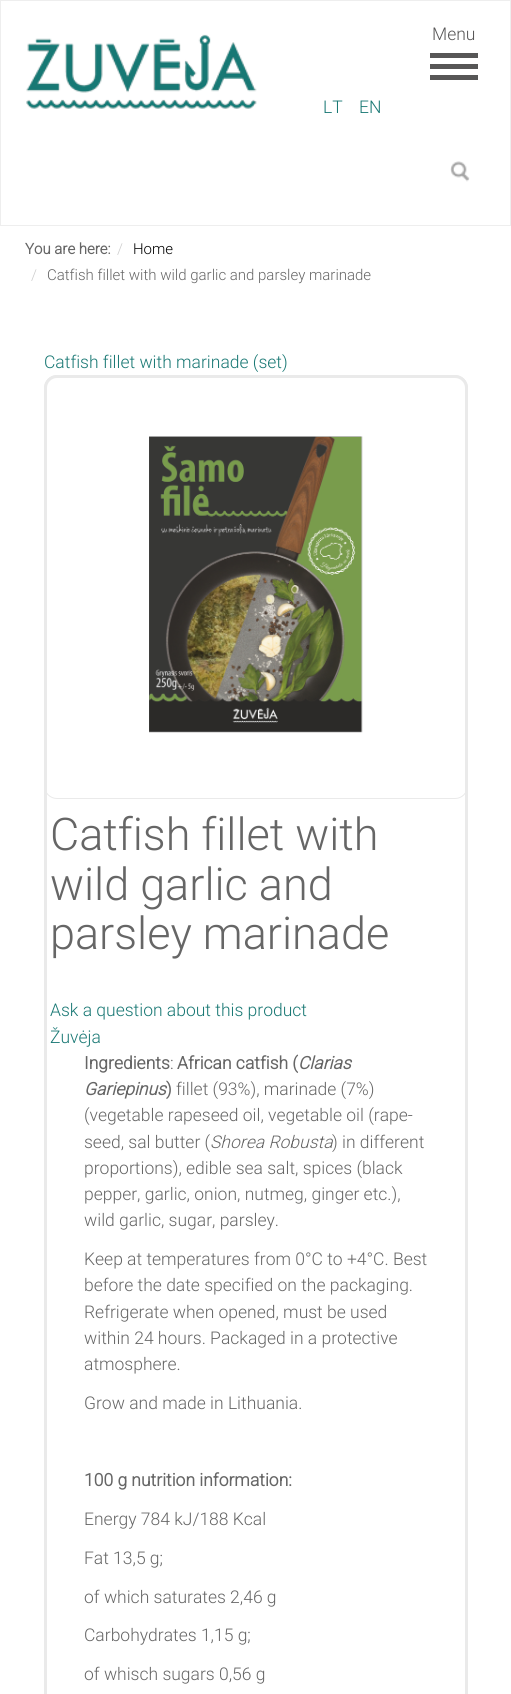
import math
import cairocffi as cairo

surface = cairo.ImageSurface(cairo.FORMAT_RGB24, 511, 1694)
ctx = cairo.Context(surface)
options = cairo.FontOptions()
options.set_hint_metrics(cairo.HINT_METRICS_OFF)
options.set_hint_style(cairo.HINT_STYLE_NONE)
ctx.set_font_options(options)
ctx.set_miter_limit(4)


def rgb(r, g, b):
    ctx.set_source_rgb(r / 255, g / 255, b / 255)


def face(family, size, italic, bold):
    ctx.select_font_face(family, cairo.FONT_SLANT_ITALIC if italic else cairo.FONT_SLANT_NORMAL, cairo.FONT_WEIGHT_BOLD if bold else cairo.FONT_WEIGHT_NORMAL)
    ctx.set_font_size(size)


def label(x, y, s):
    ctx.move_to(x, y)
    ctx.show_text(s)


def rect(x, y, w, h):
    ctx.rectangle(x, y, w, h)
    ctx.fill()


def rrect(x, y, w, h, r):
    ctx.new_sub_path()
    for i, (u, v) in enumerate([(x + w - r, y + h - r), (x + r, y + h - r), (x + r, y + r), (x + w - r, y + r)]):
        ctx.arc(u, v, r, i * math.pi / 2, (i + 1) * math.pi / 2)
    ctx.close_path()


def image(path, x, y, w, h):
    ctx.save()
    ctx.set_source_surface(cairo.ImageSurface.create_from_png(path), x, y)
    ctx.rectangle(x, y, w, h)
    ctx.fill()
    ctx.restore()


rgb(255, 255, 255)
ctx.paint()
ctx.rectangle(0.5, 0.5, 510, 225)
rgb(238, 238, 238)
ctx.set_line_width(1)
ctx.stroke()
image('image0.png', 26, 34, 231, 75)
face('Roboto Light', 17.5, 0, 0)
rgb(87, 86, 86)
label(432, 40, 'Menu')
rect(430, 53, 48, 5)
rect(430, 64, 48, 5)
rect(430, 75, 48, 5)
rgb(25, 120, 116)
label(323, 113, 'LT')
label(359, 113, 'EN')
image('image1.png', 450, 161, 20, 21)
face('Roboto', 15, 0, 1)
rgb(102, 102, 102)
label(25, 254, 'You are here:')
face('Roboto Light', 15, 0, 0)
rgb(204, 204, 204)
label(117, 254, '/')
rgb(0, 0, 0)
label(133, 254, 'Home')
rgb(204, 204, 204)
label(31, 280, '/')
rgb(102, 102, 102)
label(47, 280, 'Catfish fillet with wild garlic and parsley marinade')
face('Roboto Light', 17.5, 0, 0)
rgb(25, 120, 116)
label(44, 368, 'Catfish fillet with marinade (set)')
rrect(45.5, 376.5, 421, 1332, 11.5)
rgb(234, 234, 234)
ctx.set_line_width(3)
ctx.stroke()
rrect(44.5, 375.5, 423, 423, 12.5)
ctx.set_line_width(1)
ctx.stroke()
image('image2.png', 149, 436, 214, 297)
face('Roboto Light', 45, 0, 0)
rgb(102, 102, 102)
label(50, 850, 'Catfish fillet with')
label(50, 900, 'wild garlic and')
label(50, 949, 'parsley marinade')
face('Roboto Light', 17.5, 0, 0)
rgb(25, 120, 116)
label(50, 1016, 'Ask a question about this product')
label(50, 1043, 'Žuvėja')
face('Roboto', 17.5, 0, 1)
rgb(102, 102, 102)
label(84, 1069, 'Ingredients')
face('Roboto Light', 17.5, 0, 0)
label(170, 1069, ':')
face('Roboto', 17.5, 0, 1)
label(177, 1069, 'African catfish (')
face('Roboto', 17.5, 1, 1)
label(298, 1069, 'Clarias')
label(84, 1095, 'Gariepinus')
face('Roboto', 17.5, 0, 1)
label(166, 1095, ')')
face('Roboto Light', 17.5, 0, 0)
label(176, 1095, 'fillet (93%), marinade (7%)')
label(84, 1121, '(vegetable rapeseed oil, vegetable oil (rape-')
label(84, 1148, 'seed, sal butter (')
face('Roboto Light', 17.5, 1, 0)
label(210, 1148, 'Shorea Robusta')
face('Roboto Light', 17.5, 0, 0)
label(332, 1148, ') in different')
label(84, 1174, 'proportions), edible sea salt, spices (black')
label(84, 1200, 'pepper, garlic, onion, nutmeg, ginger etc.),')
label(84, 1226, 'wild garlic, sugar, parsley.')
label(84, 1265, 'Keep at temperatures from 0°C to +4°C. Best')
label(84, 1291, 'before the date specified on the packaging.')
label(84, 1318, 'Refrigerate when opened, must be used')
label(84, 1344, 'within 24 hours. Packaged in a protective')
label(84, 1370, 'atmosphere.')
label(84, 1409, 'Grow and made in Lithuania.')
face('Roboto', 17.5, 0, 1)
label(84, 1486, '100 g nutrition information:')
face('Roboto Light', 17.5, 0, 0)
label(84, 1525, 'Energy 784 kJ/188 Kcal')
label(84, 1564, 'Fat 13,5 g;')
label(84, 1603, 'of which saturates 2,46 g')
label(84, 1641, 'Carbohydrates 1,15 g;')
label(84, 1680, 'of whisch sugars 0,56 g')
surface.write_to_png('render.png')
